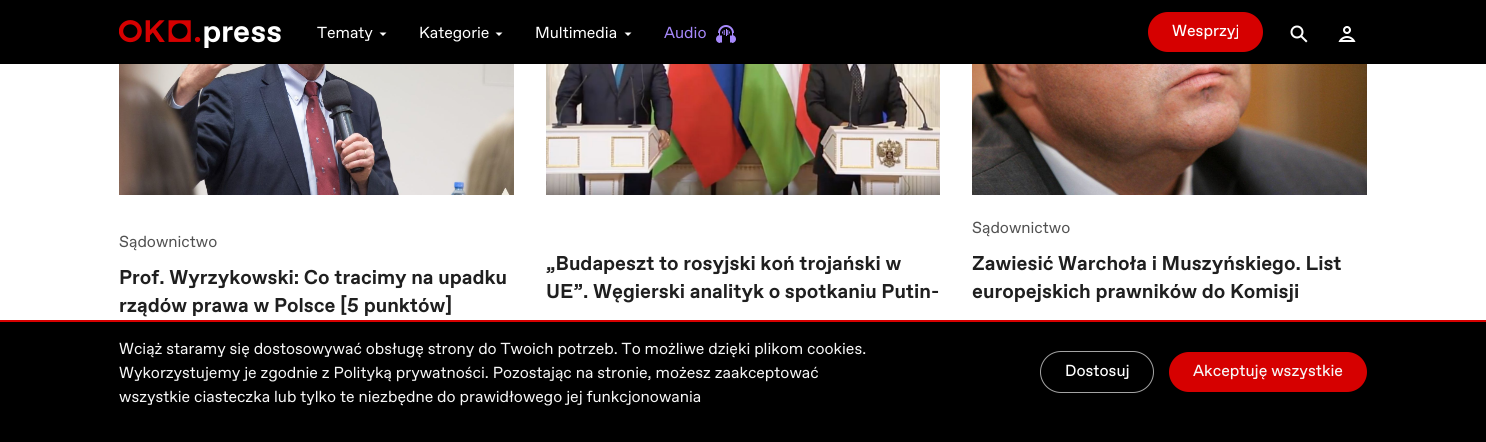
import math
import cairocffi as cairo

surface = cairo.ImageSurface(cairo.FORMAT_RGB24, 1486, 442)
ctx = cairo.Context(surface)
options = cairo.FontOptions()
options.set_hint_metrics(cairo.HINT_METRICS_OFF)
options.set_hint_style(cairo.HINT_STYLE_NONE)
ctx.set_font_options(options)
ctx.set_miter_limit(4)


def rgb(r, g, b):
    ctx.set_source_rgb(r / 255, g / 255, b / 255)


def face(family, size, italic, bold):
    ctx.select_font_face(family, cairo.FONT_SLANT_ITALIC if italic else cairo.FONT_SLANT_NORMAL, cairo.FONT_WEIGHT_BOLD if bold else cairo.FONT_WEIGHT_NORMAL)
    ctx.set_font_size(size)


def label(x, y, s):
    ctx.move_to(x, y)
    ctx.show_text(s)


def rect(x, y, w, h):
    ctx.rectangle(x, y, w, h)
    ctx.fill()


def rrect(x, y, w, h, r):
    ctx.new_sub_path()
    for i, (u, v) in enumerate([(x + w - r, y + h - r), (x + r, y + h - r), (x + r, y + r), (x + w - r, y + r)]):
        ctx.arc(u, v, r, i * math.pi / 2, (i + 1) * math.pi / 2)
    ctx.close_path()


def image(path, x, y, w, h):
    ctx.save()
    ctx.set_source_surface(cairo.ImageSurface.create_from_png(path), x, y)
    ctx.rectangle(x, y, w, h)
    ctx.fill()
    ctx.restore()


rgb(255, 255, 255)
ctx.paint()
rgb(0, 0, 0)
rect(0, 0, 1486, 64)
image('image0.png', 119, 20, 162, 28)
face('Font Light', 16, 0, 0)
rgb(255, 255, 255)
label(317, 38, 'Tematy')
ctx.new_path()
ctx.move_to(379.5, 32.5)
ctx.line_to(383, 36)
ctx.line_to(386.5, 32.5)
ctx.close_path()
ctx.fill()
label(419, 38, 'Kategorie')
ctx.new_path()
ctx.move_to(495.5, 32.5)
ctx.line_to(499, 36)
ctx.line_to(502.5, 32.5)
ctx.close_path()
ctx.fill()
label(535, 38, 'Multimedia')
ctx.new_path()
ctx.move_to(624.5, 32.5)
ctx.line_to(628, 36)
ctx.line_to(631.5, 32.5)
ctx.close_path()
ctx.fill()
rgb(167, 137, 252)
label(664, 38, 'Audio')
image('image1.png', 716, 25, 20, 18)
rgb(214, 0, 0)
rrect(1148, 12, 115, 40, 20)
ctx.fill()
face('Font', 16, 0, 0)
rgb(255, 255, 255)
label(1172, 36, 'Wesprzyj')
image('image2.png', 1290, 25, 18, 18)
image('image3.png', 1338, 26, 18, 16)
image('image4.png', 119, 64, 395, 131)
face('Font Light', 16, 0, 0)
rgb(81, 81, 81)
label(119, 247, 'Sądownictwo')
face('Font', 20, 0, 1)
rgb(31, 31, 31)
label(119, 284, 'Prof. Wyrzykowski: Co tracimy na upadku')
label(119, 312, 'rządów prawa w Polsce [5 punktów]')
image('image5.png', 546, 64, 394, 131)
label(546, 270, '„Budapeszt to rosyjski koń trojański w')
label(546, 298, 'UE”. Węgierski analityk o spotkaniu Putin-')
image('image6.png', 972, 64, 395, 131)
face('Font Light', 16, 0, 0)
rgb(81, 81, 81)
label(972, 233, 'Sądownictwo')
face('Font', 20, 0, 1)
rgb(31, 31, 31)
label(972, 270, 'Zawiesić Warchoła i Muszyńskiego. List')
label(972, 298, 'europejskich prawników do Komisji')
rgb(0, 0, 0)
rect(0, 322, 1486, 120)
rgb(214, 0, 0)
rect(0, 320, 1486, 2)
face('Font Light', 16, 0, 0)
rgb(247, 247, 247)
label(119, 354, 'Wciąż staramy się dostosowywać obsługę strony do Twoich potrzeb. To możliwe dzięki plikom cookies.')
label(119, 378, 'Wykorzystujemy je zgodnie z Polityką prywatności. Pozostając na stronie, możesz zaakceptować')
label(119, 402, 'wszystkie ciasteczka lub tylko te niezbędne do prawidłowego jej funkcjonowania')
rrect(1040.5, 351.5, 113, 41, 20.5)
rgb(164, 164, 164)
ctx.set_line_width(1)
ctx.stroke()
face('Font', 16, 0, 0)
rgb(255, 255, 255)
label(1065, 376, 'Dostosuj')
rgb(214, 0, 0)
rrect(1169, 352, 198, 40, 20)
ctx.fill()
rgb(247, 247, 247)
label(1193, 376, 'Akceptuję wszystkie')
surface.write_to_png('render.png')
